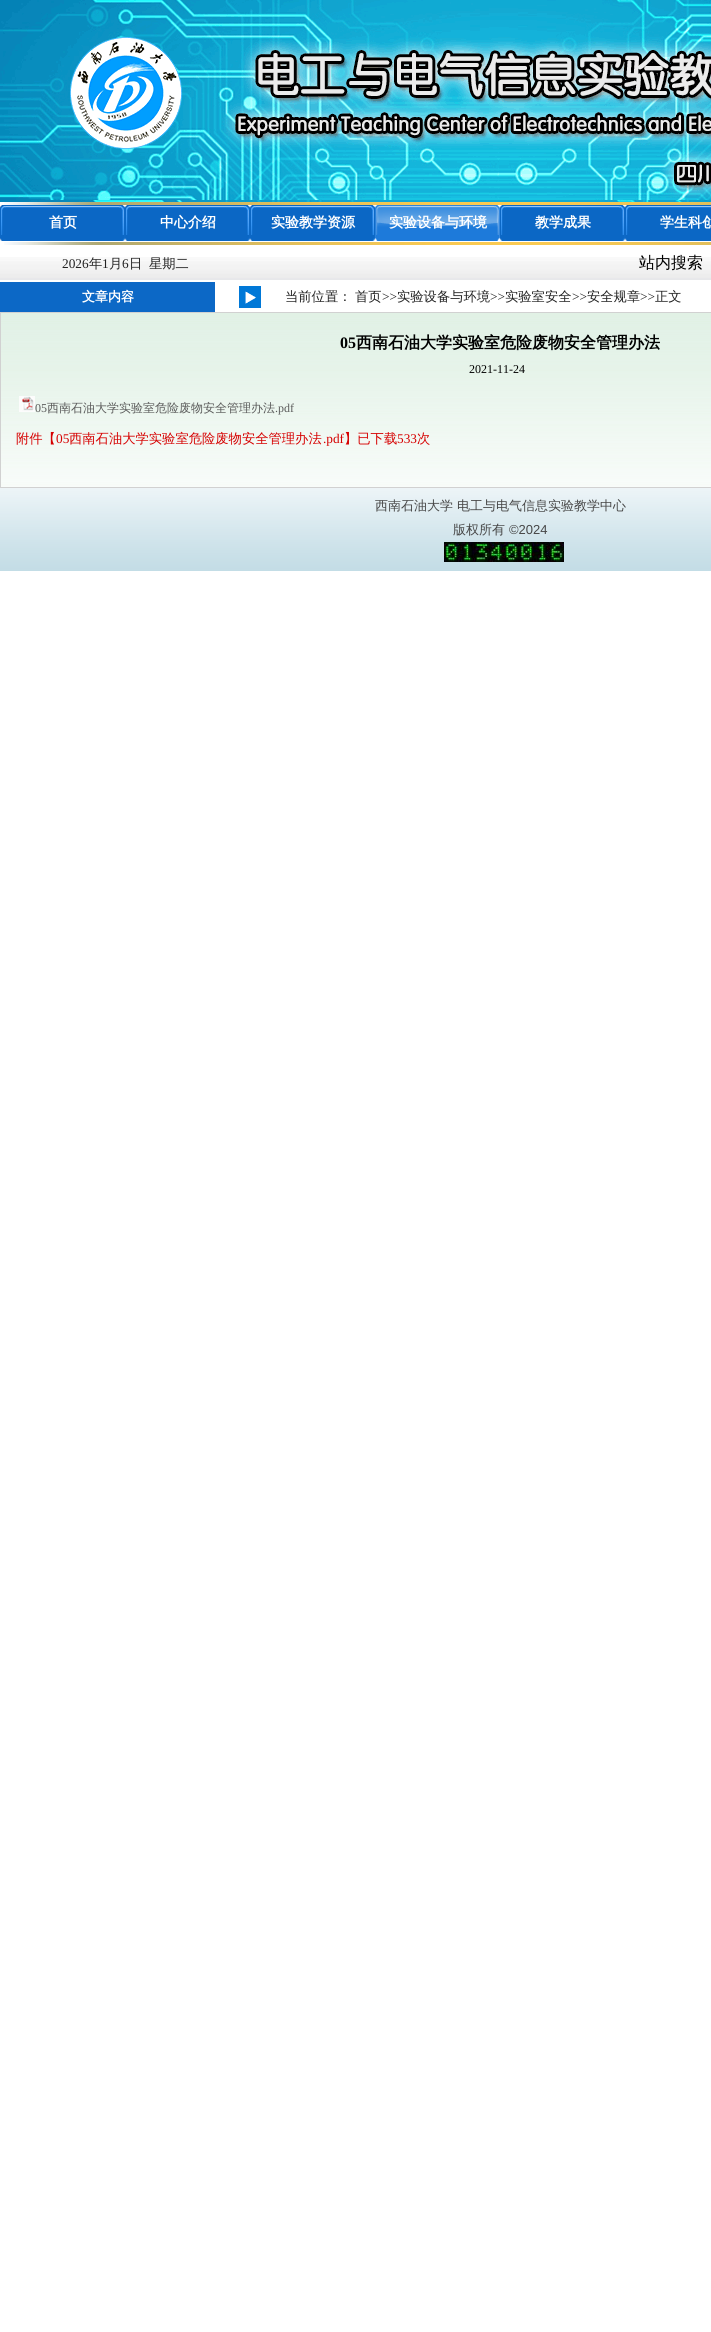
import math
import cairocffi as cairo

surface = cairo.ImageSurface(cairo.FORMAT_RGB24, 711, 2332)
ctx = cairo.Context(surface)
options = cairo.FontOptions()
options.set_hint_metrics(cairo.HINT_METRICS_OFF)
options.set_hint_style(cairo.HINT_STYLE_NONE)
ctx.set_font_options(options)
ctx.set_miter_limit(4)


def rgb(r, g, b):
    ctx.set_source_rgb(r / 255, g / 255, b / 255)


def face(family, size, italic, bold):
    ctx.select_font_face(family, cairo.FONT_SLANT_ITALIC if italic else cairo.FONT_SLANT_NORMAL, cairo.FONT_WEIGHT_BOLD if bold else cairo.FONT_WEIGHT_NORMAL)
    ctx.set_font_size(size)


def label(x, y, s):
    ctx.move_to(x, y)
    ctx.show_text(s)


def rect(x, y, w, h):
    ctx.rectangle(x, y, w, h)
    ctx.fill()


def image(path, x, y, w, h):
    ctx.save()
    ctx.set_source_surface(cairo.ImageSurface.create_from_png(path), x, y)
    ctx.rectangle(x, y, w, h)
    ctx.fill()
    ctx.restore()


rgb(255, 255, 255)
ctx.paint()
image('image0.png', 0, 0, 711, 202)
image('image1.png', 4, 202, 707, 3)
image('image2.png', 0, 205, 125, 36)
face('WenQuanYi Zen Hei', 14, 0, 1)
rgb(255, 255, 255)
label(49, 227, '首页')
image('image2.png', 125, 205, 125, 36)
label(160, 227, '中心介绍')
image('image2.png', 250, 205, 125, 36)
label(271, 227, '实验教学资源')
image('image3.png', 375, 205, 125, 36)
label(389, 227, '实验设备与环境')
image('image2.png', 500, 205, 125, 36)
label(535, 227, '教学成果')
image('image4.png', 625, 205, 86, 36)
label(660, 227, '学生科创')
image('image1.png', 4, 242, 707, 3)
image('image5.png', 0, 257, 251, 23)
face('Liberation Serif', 13.3, 0, 0)
rgb(34, 34, 34)
label(62, 268, '2026')
face('WenQuanYi Zen Hei Medium', 13.3, 0, 0)
label(89, 268, '年')
face('Liberation Serif', 13.3, 0, 0)
label(102, 268, '1')
face('WenQuanYi Zen Hei Medium', 13.3, 0, 0)
label(109, 268, '月')
face('Liberation Serif', 13.3, 0, 0)
label(122, 268, '6')
face('WenQuanYi Zen Hei Medium', 13.3, 0, 0)
label(129, 268, '日')
label(149, 268, '星期二')
image('image6.png', 251, 257, 373, 23)
image('image7.png', 624, 257, 87, 23)
face('WenQuanYi Zen Hei Medium', 16, 0, 0)
rgb(0, 0, 0)
label(639, 268, '站内搜索')
rgb(12, 104, 198)
rect(0, 282, 215, 30)
face('WenQuanYi Zen Hei', 13, 0, 1)
rgb(255, 255, 255)
label(82, 301, '文章内容')
image('image8.png', 239, 286, 22, 22)
face('WenQuanYi Zen Hei Medium', 13.3, 0, 0)
rgb(34, 34, 34)
label(285, 301, '当前位置：')
label(355, 301, '首页')
face('Liberation Serif', 13.3, 0, 0)
label(382, 301, '>>')
face('WenQuanYi Zen Hei Medium', 13.3, 0, 0)
label(397, 301, '实验设备与环境')
face('Liberation Serif', 13.3, 0, 0)
label(490, 301, '>>')
face('WenQuanYi Zen Hei Medium', 13.3, 0, 0)
label(505, 301, '实验室安全')
face('Liberation Serif', 13.3, 0, 0)
label(572, 301, '>>')
face('WenQuanYi Zen Hei Medium', 13.3, 0, 0)
label(587, 301, '安全规章')
face('Liberation Serif', 13.3, 0, 0)
label(640, 301, '>>')
face('WenQuanYi Zen Hei Medium', 13.3, 0, 0)
label(655, 301, '正文')
image('image9.png', 1, 313, 710, 174)
ctx.rectangle(0.5, 312.5, 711, 175)
rgb(209, 209, 209)
ctx.set_line_width(1)
ctx.stroke()
face('Liberation Serif', 16, 0, 1)
rgb(0, 0, 0)
label(340, 348, '05')
face('WenQuanYi Zen Hei', 16, 0, 1)
label(356, 348, '西南石油大学实验室危险废物安全管理办法')
face('Liberation Serif', 12, 0, 0)
label(469, 373, '2021-11-24')
image('image10.png', 19, 396, 16, 16)
rgb(90, 90, 90)
label(35, 412, '05')
face('WenQuanYi Zen Hei Medium', 12, 0, 0)
label(47, 412, '西南石油大学实验室危险废物安全管理办法')
face('Liberation Serif', 12, 0, 0)
label(275, 412, '.pdf')
face('WenQuanYi Zen Hei Medium', 13.3, 0, 0)
rgb(214, 0, 0)
label(16, 443, '附件【')
face('Liberation Serif', 13.3, 0, 0)
label(56, 443, '05')
face('WenQuanYi Zen Hei Medium', 13.3, 0, 0)
label(69, 443, '西南石油大学实验室危险废物安全管理办法')
face('Liberation Serif', 13.3, 0, 0)
label(323, 443, '.pdf')
face('WenQuanYi Zen Hei Medium', 13.3, 0, 0)
label(344, 443, '】已下载')
face('Liberation Serif', 13.3, 0, 0)
label(397, 443, '533')
face('WenQuanYi Zen Hei Medium', 13.3, 0, 0)
label(417, 443, '次')
image('image11.png', 0, 488, 711, 83)
face('WenQuanYi Zen Hei Medium', 13, 0, 0)
rgb(70, 70, 70)
label(375, 510, '西南石油大学 电工与电气信息实验教学中心')
label(453, 534, '版权所有')
face('Liberation Sans', 13, 0, 0)
label(509, 534, '©2024')
image('image12.png', 444, 542, 120, 20)
surface.write_to_png('render.png')
